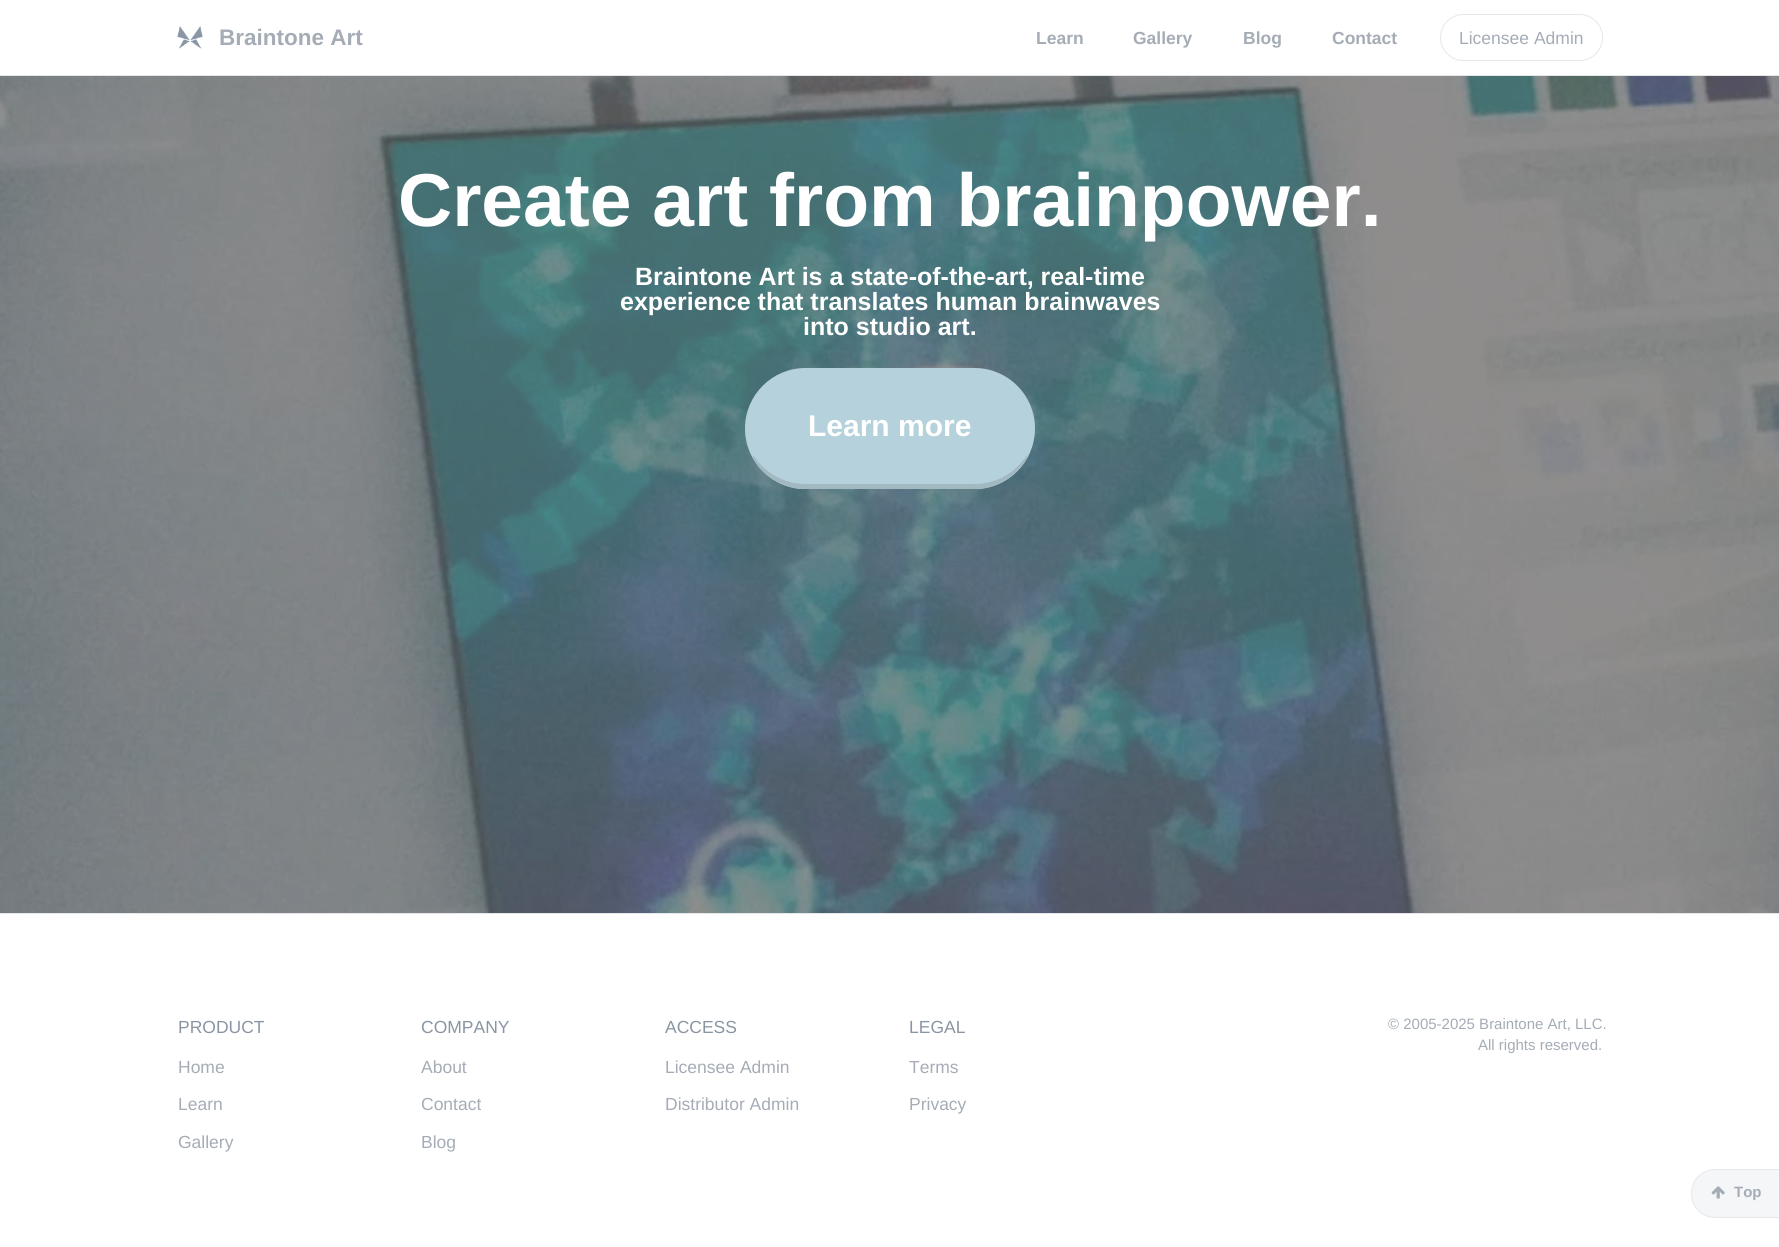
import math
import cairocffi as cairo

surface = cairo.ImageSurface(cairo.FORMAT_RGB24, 1779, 1247)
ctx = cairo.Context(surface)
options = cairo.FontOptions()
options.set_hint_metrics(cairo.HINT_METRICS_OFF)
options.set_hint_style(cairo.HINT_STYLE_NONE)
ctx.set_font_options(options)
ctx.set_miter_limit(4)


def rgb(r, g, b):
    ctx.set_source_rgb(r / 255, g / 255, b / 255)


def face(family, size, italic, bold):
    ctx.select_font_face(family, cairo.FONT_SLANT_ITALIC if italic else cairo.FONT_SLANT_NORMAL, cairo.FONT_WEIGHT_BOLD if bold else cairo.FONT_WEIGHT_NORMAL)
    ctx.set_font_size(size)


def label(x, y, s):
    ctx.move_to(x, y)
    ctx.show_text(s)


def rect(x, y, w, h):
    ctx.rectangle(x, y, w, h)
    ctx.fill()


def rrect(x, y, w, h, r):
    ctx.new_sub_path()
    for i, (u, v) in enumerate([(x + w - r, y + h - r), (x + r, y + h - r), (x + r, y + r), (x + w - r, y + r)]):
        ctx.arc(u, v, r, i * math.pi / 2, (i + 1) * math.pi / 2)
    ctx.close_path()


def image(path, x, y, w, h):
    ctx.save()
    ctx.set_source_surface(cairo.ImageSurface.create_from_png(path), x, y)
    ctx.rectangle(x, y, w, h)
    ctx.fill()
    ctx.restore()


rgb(255, 255, 255)
ctx.paint()
rgb(229, 231, 235)
rect(0, 75, 1779, 1)
image('image0.png', 177, 26, 26, 23)
face('Liberation Sans', 22.5, 0, 1)
rgb(165, 172, 182)
label(219, 45, 'Braintone Art')
face('Liberation Sans', 17.5, 0, 1)
label(1036, 44, 'Learn')
label(1133, 44, 'Gallery')
label(1243, 44, 'Blog')
label(1332, 44, 'Contact')
rrect(1440.5, 14.5, 162, 46, 23)
rgb(229, 231, 235)
ctx.set_line_width(1)
ctx.stroke()
face('Liberation Sans', 17.5, 0, 0)
rgb(165, 172, 182)
label(1459, 44, 'Licensee Admin')
rgb(244, 246, 247)
ctx.new_path()
ctx.move_to(1715.5, 1169.5)
ctx.line_to(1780.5, 1169.5)
ctx.line_to(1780.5, 1217.5)
ctx.line_to(1715.5, 1217.5)
ctx.curve_to(1702, 1217.5, 1691.5, 1207, 1691.5, 1193.5)
ctx.curve_to(1691.5, 1180, 1702, 1169.5, 1715.5, 1169.5)
ctx.close_path()
ctx.fill_preserve()
rgb(229, 231, 235)
ctx.stroke()
image('image1.png', 1711, 1186, 14, 13)
face('Liberation Sans', 15, 0, 1)
rgb(165, 172, 182)
label(1734, 1197, 'Top')
image('image2.png', 0, 76, 1779, 837)
ctx.set_source_rgba(0, 0, 0, 0.6)
rect(0, 76, 1779, 837)
face('Liberation Sans', 75, 0, 1)
rgb(255, 255, 255)
label(398, 226, 'Create art from brainpower.')
face('Liberation Sans', 25, 0, 1)
label(635, 285, 'Braintone Art is a state-of-the-art, real-time')
label(620, 310, 'experience that translates human brainwaves')
label(803, 335, 'into studio art.')
rgb(154, 192, 206)
rrect(745, 368, 290, 121, 60.5)
ctx.fill()
rgb(128, 159, 171)
ctx.new_path()
ctx.move_to(800, 489)
ctx.curve_to(780, 487, 762, 475, 753, 458)
ctx.line_to(753, 455)
ctx.curve_to(764, 472, 783, 484, 806, 484)
ctx.line_to(974, 484)
ctx.curve_to(997, 484, 1016, 472, 1027, 455)
ctx.line_to(1027, 458)
ctx.curve_to(1018, 475, 1000, 487, 980, 489)
ctx.close_path()
ctx.fill()
face('Liberation Sans', 30, 0, 1)
rgb(255, 255, 255)
label(808, 436, 'Learn more')
ctx.set_source_rgba(1, 1, 1, 0.27)
rect(0, 76, 1779, 837)
rgb(229, 231, 235)
rect(0, 913, 1779, 1)
face('Liberation Sans', 17.5, 0, 0)
rgb(138, 149, 164)
label(178, 1033, 'PRODUCT')
rgb(165, 172, 182)
label(178, 1073, 'Home')
label(178, 1110, 'Learn')
label(178, 1148, 'Gallery')
rgb(138, 149, 164)
label(421, 1033, 'COMPANY')
rgb(165, 172, 182)
label(421, 1073, 'About')
label(421, 1110, 'Contact')
label(421, 1148, 'Blog')
rgb(138, 149, 164)
label(665, 1033, 'ACCESS')
rgb(165, 172, 182)
label(665, 1073, 'Licensee Admin')
label(665, 1110, 'Distributor Admin')
rgb(138, 149, 164)
label(909, 1033, 'LEGAL')
rgb(165, 172, 182)
label(909, 1073, 'Terms')
label(909, 1110, 'Privacy')
face('Liberation Sans', 15, 0, 0)
label(1388, 1029, '© 2005-2025 Braintone Art, LLC.')
label(1478, 1050, 'All rights reserved.')
surface.write_to_png('render.png')
